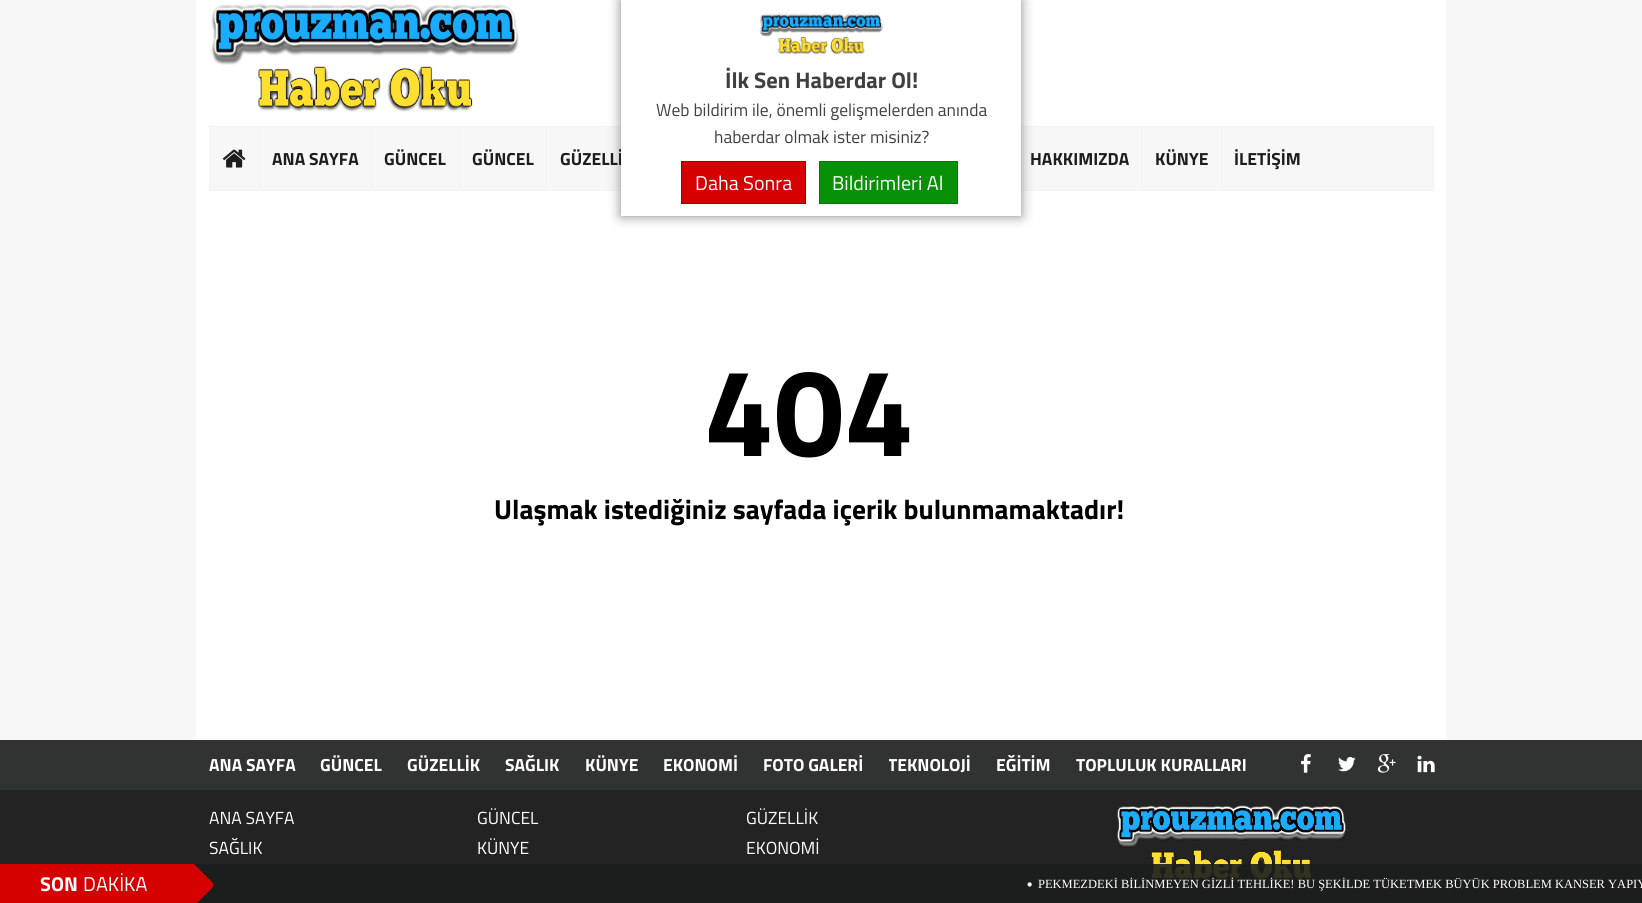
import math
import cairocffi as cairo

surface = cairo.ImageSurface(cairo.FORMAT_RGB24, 1642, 903)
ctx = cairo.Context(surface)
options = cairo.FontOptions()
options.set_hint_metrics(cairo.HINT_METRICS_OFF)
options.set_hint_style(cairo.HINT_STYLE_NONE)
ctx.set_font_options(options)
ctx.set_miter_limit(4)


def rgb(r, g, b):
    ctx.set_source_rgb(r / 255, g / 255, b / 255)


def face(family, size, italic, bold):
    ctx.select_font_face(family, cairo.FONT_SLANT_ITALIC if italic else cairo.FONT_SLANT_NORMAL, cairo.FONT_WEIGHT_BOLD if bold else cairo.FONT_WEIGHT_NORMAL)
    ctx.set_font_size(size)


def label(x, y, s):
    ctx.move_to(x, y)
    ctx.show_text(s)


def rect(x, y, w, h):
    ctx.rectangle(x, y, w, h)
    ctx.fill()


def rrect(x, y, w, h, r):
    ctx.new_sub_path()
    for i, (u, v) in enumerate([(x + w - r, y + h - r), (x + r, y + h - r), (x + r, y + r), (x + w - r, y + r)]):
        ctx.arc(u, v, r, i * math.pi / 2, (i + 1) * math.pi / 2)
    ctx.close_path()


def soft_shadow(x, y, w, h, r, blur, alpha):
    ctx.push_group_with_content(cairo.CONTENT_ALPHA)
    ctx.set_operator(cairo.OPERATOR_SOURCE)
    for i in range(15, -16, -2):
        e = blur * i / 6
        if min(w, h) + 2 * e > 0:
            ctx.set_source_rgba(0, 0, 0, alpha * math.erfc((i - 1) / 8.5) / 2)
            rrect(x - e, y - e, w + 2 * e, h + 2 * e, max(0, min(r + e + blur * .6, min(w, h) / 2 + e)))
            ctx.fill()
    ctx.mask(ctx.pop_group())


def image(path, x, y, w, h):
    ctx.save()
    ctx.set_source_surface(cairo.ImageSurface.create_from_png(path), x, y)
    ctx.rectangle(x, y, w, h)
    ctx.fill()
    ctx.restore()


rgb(247, 247, 247)
ctx.paint()
rgb(255, 255, 255)
rect(196, 0, 1250, 740)
rgb(247, 247, 247)
ctx.rectangle(209.5, 126.5, 1224, 64)
ctx.fill_preserve()
rgb(242, 242, 242)
ctx.set_line_width(1)
ctx.stroke()
rgb(136, 136, 136)
soft_shadow(621, 0, 400, 216, 0, 6, 1)
face('Titillium Web', 17.5, 0, 1)
rgb(28, 29, 29)
label(560, 165, 'GÜZELLİ')
rgb(255, 255, 255)
rect(621, 0, 400, 216)
image('image0.png', 759, 13, 124, 42)
face('Titillium Web', 22.5, 0, 1)
rgb(64, 64, 64)
label(725, 88, 'İlk Sen Haberdar Ol!')
face('Titillium Web', 17.5, 0, 0)
label(656, 116, 'Web bildirim ile, önemli gelişmelerden anında')
label(714, 143, 'haberdar olmak ister misiniz?')
rgb(213, 0, 0)
ctx.rectangle(681.5, 161.5, 124, 42)
ctx.fill_preserve()
rgb(162, 0, 0)
ctx.stroke()
face('Titillium Web', 20, 0, 0)
rgb(255, 255, 255)
label(695, 190, 'Daha Sonra')
rgb(8, 144, 7)
ctx.rectangle(819.5, 161.5, 138, 42)
ctx.fill_preserve()
rgb(8, 119, 8)
ctx.stroke()
rgb(255, 255, 255)
label(832, 190, 'Bildirimleri Al')
image('image1.png', 211, 4, 308, 108)
image('image2.png', 222, 149, 24, 19)
rgb(242, 242, 242)
rect(259, 128, 1, 62)
face('Titillium Web', 17.5, 0, 1)
rgb(28, 29, 29)
label(272, 165, 'ANA SAYFA')
rgb(242, 242, 242)
rect(371, 128, 1, 62)
rgb(28, 29, 29)
label(384, 165, 'GÜNCEL')
rgb(242, 242, 242)
rect(459, 128, 1, 62)
rgb(28, 29, 29)
label(472, 165, 'GÜNCEL')
rgb(242, 242, 242)
rect(546, 128, 1, 62)
rgb(28, 29, 29)
label(1030, 165, 'HAKKIMIZDA')
rgb(242, 242, 242)
rect(1141, 128, 1, 62)
rgb(28, 29, 29)
label(1155, 165, 'KÜNYE')
rgb(242, 242, 242)
rect(1221, 128, 1, 62)
rgb(28, 29, 29)
label(1234, 165, 'İLETİŞİM')
face('Titillium Web', 125, 0, 1)
rgb(0, 0, 0)
label(704, 456, '404')
face('Titillium Web', 27.5, 0, 1)
label(494, 519, 'Ulaşmak istediğiniz sayfada içerik bulunmamaktadır!')
rgb(49, 50, 50)
rect(0, 740, 1642, 50)
face('Titillium Web', 17.5, 0, 1)
rgb(255, 255, 255)
label(209, 771, 'ANA SAYFA')
label(320, 771, 'GÜNCEL')
label(407, 771, 'GÜZELLİK')
label(505, 771, 'SAĞLIK')
label(585, 771, 'KÜNYE')
label(663, 771, 'EKONOMİ')
label(763, 771, 'FOTO GALERİ')
ctx.save()
ctx.rectangle(889, 740, 82, 50)
ctx.clip()
label(888, 771, 'TEKNOLOJİ')
ctx.restore()
label(996, 771, 'EĞİTİM')
label(1076, 771, 'TOPLULUK KURALLARI')
image('image3.png', 1301, 754, 10, 19)
image('image4.png', 1338, 757, 18, 15)
image('image5.png', 1377, 754, 19, 19)
image('image6.png', 1417, 755, 18, 18)
rgb(35, 35, 35)
rect(0, 790, 1642, 113)
face('Titillium Web', 17.5, 0, 0)
rgb(255, 255, 255)
label(209, 824, 'ANA SAYFA')
label(477, 824, 'GÜNCEL')
label(746, 824, 'GÜZELLİK')
label(209, 854, 'SAĞLIK')
label(477, 854, 'KÜNYE')
label(746, 854, 'EKONOMİ')
image('image7.png', 1117, 805, 229, 77)
ctx.set_source_rgba(0.11, 0.114, 0.114, 0.9)
rect(194, 864, 1448, 39)
rgb(213, 0, 0)
rect(0, 864, 175, 39)
face('Titillium Web', 20, 0, 1)
rgb(255, 255, 255)
label(40, 891, 'SON')
face('Titillium Web', 20, 0, 0)
label(83, 891, 'DAKİKA')
ctx.save()
ctx.rectangle(0, 864, 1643, 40)
ctx.clip()
rgb(213, 0, 0)
ctx.new_path()
ctx.move_to(212, 882)
ctx.curve_to(216, 886, 209, 891, 207, 893)
ctx.line_to(187, 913)
ctx.curve_to(185, 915, 180, 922, 176, 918)
ctx.curve_to(173, 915, 175, 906, 175, 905)
ctx.line_to(175, 854)
ctx.line_to(177, 852)
ctx.curve_to(181, 849, 185, 855, 187, 857)
ctx.close_path()
ctx.fill()
ctx.restore()
image('image8.png', 1027, 882, 5, 5)
face('Liberation Serif', 12.5, 0, 0)
label(1038, 888, 'PEKMEZDEKİ BİLİNMEYEN GİZLİ TEHLİKE! BU ŞEKİLDE TÜKETMEK BÜYÜK PROBLEM KANSER YAPIY')
surface.write_to_png('render.png')
